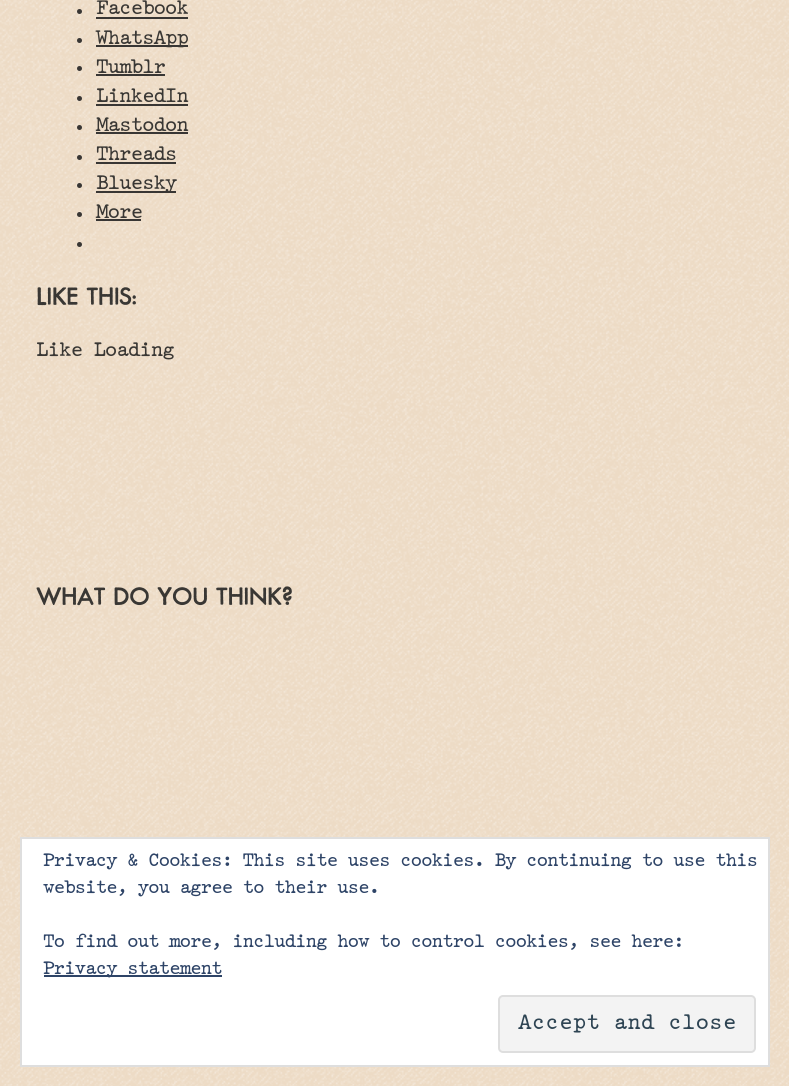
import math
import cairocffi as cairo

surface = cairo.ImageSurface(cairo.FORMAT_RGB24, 789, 1086)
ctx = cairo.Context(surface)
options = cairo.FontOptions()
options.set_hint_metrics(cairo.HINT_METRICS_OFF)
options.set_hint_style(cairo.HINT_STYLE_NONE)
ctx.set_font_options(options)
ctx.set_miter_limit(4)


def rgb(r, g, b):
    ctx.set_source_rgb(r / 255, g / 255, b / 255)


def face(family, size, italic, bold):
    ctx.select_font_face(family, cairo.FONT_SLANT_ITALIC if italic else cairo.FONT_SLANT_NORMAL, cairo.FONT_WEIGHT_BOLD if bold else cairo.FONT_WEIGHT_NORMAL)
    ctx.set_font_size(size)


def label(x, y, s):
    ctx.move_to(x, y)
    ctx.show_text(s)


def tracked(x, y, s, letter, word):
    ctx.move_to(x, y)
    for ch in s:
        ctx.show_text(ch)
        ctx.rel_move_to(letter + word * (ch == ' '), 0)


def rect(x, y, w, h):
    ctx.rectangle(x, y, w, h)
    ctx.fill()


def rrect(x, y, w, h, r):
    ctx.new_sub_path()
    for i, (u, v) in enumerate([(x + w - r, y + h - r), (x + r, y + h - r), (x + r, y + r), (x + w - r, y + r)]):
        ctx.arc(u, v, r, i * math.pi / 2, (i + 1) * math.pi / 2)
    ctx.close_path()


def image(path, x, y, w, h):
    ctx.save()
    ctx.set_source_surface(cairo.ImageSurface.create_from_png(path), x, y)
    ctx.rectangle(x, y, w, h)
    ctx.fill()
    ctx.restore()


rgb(237, 219, 197)
ctx.paint()
image('image0.png', 0, 0, 789, 1086)
ctx.set_source_rgba(0.098, 0.098, 0.102, 0.85)
ctx.arc(79.5, 11.5, 2.5, 0, 2 * math.pi)
ctx.fill()
face('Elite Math', 19.5, 0, 0)
rgb(57, 55, 52)
tracked(96, 14, 'Facebook', -1.2, 0)
ctx.set_source_rgba(0.098, 0.098, 0.102, 0.85)
rect(96, 17, 92, 2)
ctx.new_path()
ctx.arc(79.5, 40.5, 2.5, 0, 2 * math.pi)
ctx.fill()
rect(96, 45, 92, 2)
rgb(57, 55, 52)
tracked(96, 44, 'WhatsApp', -1.2, 0)
ctx.set_source_rgba(0.098, 0.098, 0.102, 0.85)
ctx.new_path()
ctx.arc(79.5, 68.5, 2.5, 0, 2 * math.pi)
ctx.fill()
rgb(57, 55, 52)
tracked(96, 73, 'Tumblr', -1.2, 0)
ctx.set_source_rgba(0.098, 0.098, 0.102, 0.85)
rect(96, 74, 69, 2)
ctx.new_path()
ctx.arc(79.5, 98.5, 2.5, 0, 2 * math.pi)
ctx.fill()
rgb(57, 55, 52)
tracked(96, 102, 'LinkedIn', -1.2, 0)
ctx.set_source_rgba(0.098, 0.098, 0.102, 0.85)
rect(96, 104, 92, 2)
ctx.new_path()
ctx.arc(79.5, 127.5, 2.5, 0, 2 * math.pi)
ctx.fill()
rgb(57, 55, 52)
tracked(96, 131, 'Mastodon', -1.2, 0)
ctx.set_source_rgba(0.098, 0.098, 0.102, 0.85)
rect(96, 132, 92, 2)
ctx.new_path()
ctx.arc(79.5, 157.5, 2.5, 0, 2 * math.pi)
ctx.fill()
rgb(57, 55, 52)
tracked(96, 160, 'Threads', -1.2, 0)
ctx.set_source_rgba(0.098, 0.098, 0.102, 0.85)
rect(96, 162, 80, 2)
ctx.new_path()
ctx.arc(79.5, 185.5, 2.5, 0, 2 * math.pi)
ctx.fill()
rect(96, 191, 80, 2)
rgb(57, 55, 52)
tracked(96, 189, 'Bluesky', -1.2, 0)
ctx.set_source_rgba(0.098, 0.098, 0.102, 0.85)
ctx.new_path()
ctx.arc(79.5, 214.5, 2.5, 0, 2 * math.pi)
ctx.fill()
rgb(57, 55, 52)
tracked(96, 218, 'More', -1.2, 0)
ctx.set_source_rgba(0.098, 0.098, 0.102, 0.85)
rect(96, 219, 45, 2)
ctx.new_path()
ctx.arc(79.5, 244.5, 2.5, 0, 2 * math.pi)
ctx.fill()
face('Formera', 25.5, 0, 1)
rgb(57, 55, 52)
label(36, 305, 'LIKE THIS:')
face('Elite Math', 19.5, 0, 0)
tracked(36, 356, 'Like Loading…', -1.2, 0)
face('Formera', 25.5, 0, 1)
label(36, 605, 'WHAT DO YOU THINK?')
rgb(255, 255, 255)
ctx.rectangle(21, 838, 748, 228)
ctx.fill_preserve()
rgb(222, 222, 222)
ctx.stroke()
face('Elite Math', 18, 0, 0)
rgb(46, 68, 103)
tracked(43, 866, 'Privacy & Cookies: This site uses cookies. By continuing to use this', -1.2, 0)
tracked(43, 893, 'website, you agree to their use.', -1.2, 0)
tracked(43, 947, 'To find out more, including how to control cookies, see here:', -1.2, 0)
rect(44, 975, 178, 2)
tracked(43, 974, 'Privacy statement', -1.2, 0)
rgb(243, 243, 243)
rrect(499, 996, 256, 56, 4)
ctx.fill_preserve()
rgb(222, 222, 222)
ctx.stroke()
face('Elite Math', 21, 0, 0)
rgb(46, 68, 83)
label(518, 1029, 'Accept and close')
surface.write_to_png('render.png')
